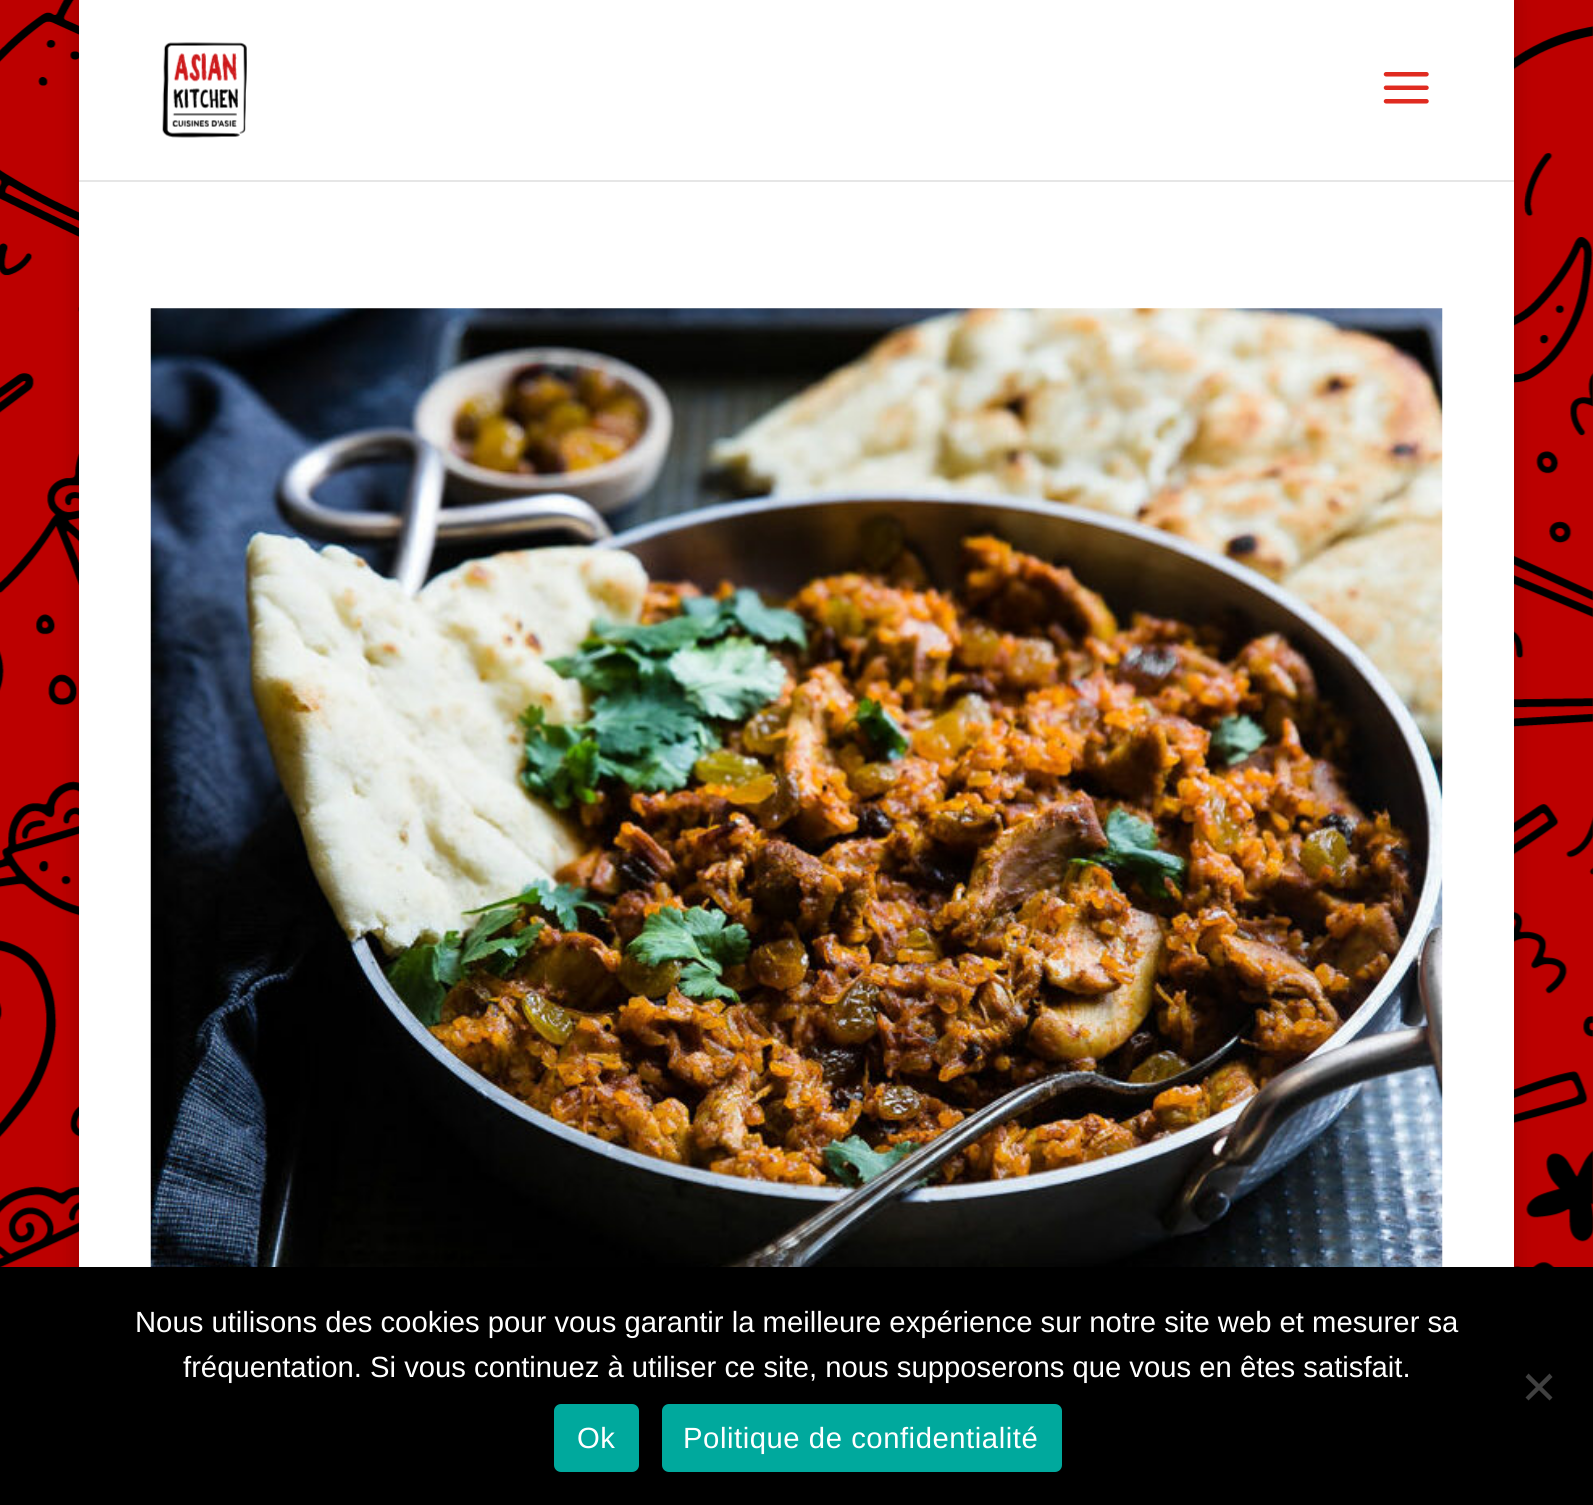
import math
import cairocffi as cairo

surface = cairo.ImageSurface(cairo.FORMAT_RGB24, 1593, 1505)
ctx = cairo.Context(surface)
options = cairo.FontOptions()
options.set_hint_metrics(cairo.HINT_METRICS_OFF)
options.set_hint_style(cairo.HINT_STYLE_NONE)
ctx.set_font_options(options)
ctx.set_miter_limit(4)


def rgb(r, g, b):
    ctx.set_source_rgb(r / 255, g / 255, b / 255)


def face(family, size, italic, bold):
    ctx.select_font_face(family, cairo.FONT_SLANT_ITALIC if italic else cairo.FONT_SLANT_NORMAL, cairo.FONT_WEIGHT_BOLD if bold else cairo.FONT_WEIGHT_NORMAL)
    ctx.set_font_size(size)


def label(x, y, s):
    ctx.move_to(x, y)
    ctx.show_text(s)


def tracked(x, y, s, letter, word):
    ctx.move_to(x, y)
    for ch in s:
        ctx.show_text(ch)
        ctx.rel_move_to(letter + word * (ch == ' '), 0)


def rect(x, y, w, h):
    ctx.rectangle(x, y, w, h)
    ctx.fill()


def rrect(x, y, w, h, r):
    ctx.new_sub_path()
    for i, (u, v) in enumerate([(x + w - r, y + h - r), (x + r, y + h - r), (x + r, y + r), (x + w - r, y + r)]):
        ctx.arc(u, v, r, i * math.pi / 2, (i + 1) * math.pi / 2)
    ctx.close_path()


def soft_shadow(x, y, w, h, r, blur, alpha):
    ctx.push_group_with_content(cairo.CONTENT_ALPHA)
    ctx.set_operator(cairo.OPERATOR_SOURCE)
    for i in range(15, -16, -2):
        e = blur * i / 6
        if min(w, h) + 2 * e > 0:
            ctx.set_source_rgba(0, 0, 0, alpha * math.erfc((i - 1) / 8.5) / 2)
            rrect(x - e, y - e, w + 2 * e, h + 2 * e, max(0, min(r + e + blur * .6, min(w, h) / 2 + e)))
            ctx.fill()
    ctx.mask(ctx.pop_group())


def image(path, x, y, w, h):
    ctx.save()
    ctx.set_source_surface(cairo.ImageSurface.create_from_png(path), x, y)
    ctx.rectangle(x, y, w, h)
    ctx.fill()
    ctx.restore()


rgb(188, 0, 0)
ctx.paint()
image('image0.png', 0, 0, 1593, 1267)
rgb(0, 0, 0)
soft_shadow(79, 0, 1435, 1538, 0, 11, 0.2)
rgb(230, 230, 230)
rect(79, 180, 1435, 2)
rgb(255, 255, 255)
rect(79, 0, 1435, 180)
image('image1.png', 162, 42, 85, 96)
image('image2.png', 1383, 72, 46, 32)
rect(79, 182, 1435, 1085)
image('image3.png', 150, 308, 1293, 959)
rgb(0, 0, 0)
rect(0, 1267, 1593, 238)
face('Liberation Sans', 29.25, 0, 0)
rgb(255, 255, 255)
label(135, 1332, 'Nous utilisons des cookies pour vous garantir la meilleure expérience sur notre site web et mesurer sa')
label(183, 1377, 'fréquentation. Si vous continuez à utiliser ce site, nous supposerons que vous en êtes satisfait.')
rgb(64, 64, 64)
ctx.new_path()
ctx.move_to(1549.5, 1373.5)
ctx.line_to(1552.5, 1377)
ctx.line_to(1528.5, 1400.5)
ctx.line_to(1525.5, 1397.5)
ctx.close_path()
ctx.fill()
ctx.new_path()
ctx.move_to(1525.5, 1377)
ctx.line_to(1528.5, 1373.5)
ctx.line_to(1552.5, 1397.5)
ctx.line_to(1549.5, 1400.5)
ctx.close_path()
ctx.fill()
rgb(0, 169, 157)
rrect(554, 1404, 85, 68, 7)
ctx.fill()
rgb(255, 255, 255)
tracked(577, 1448, 'Ok', 0.55, 0)
rgb(0, 169, 157)
rrect(662, 1404, 400, 68, 7)
ctx.fill()
rgb(255, 255, 255)
tracked(683, 1448, 'Politique de confidentialité', 0.55, 0)
surface.write_to_png('render.png')
